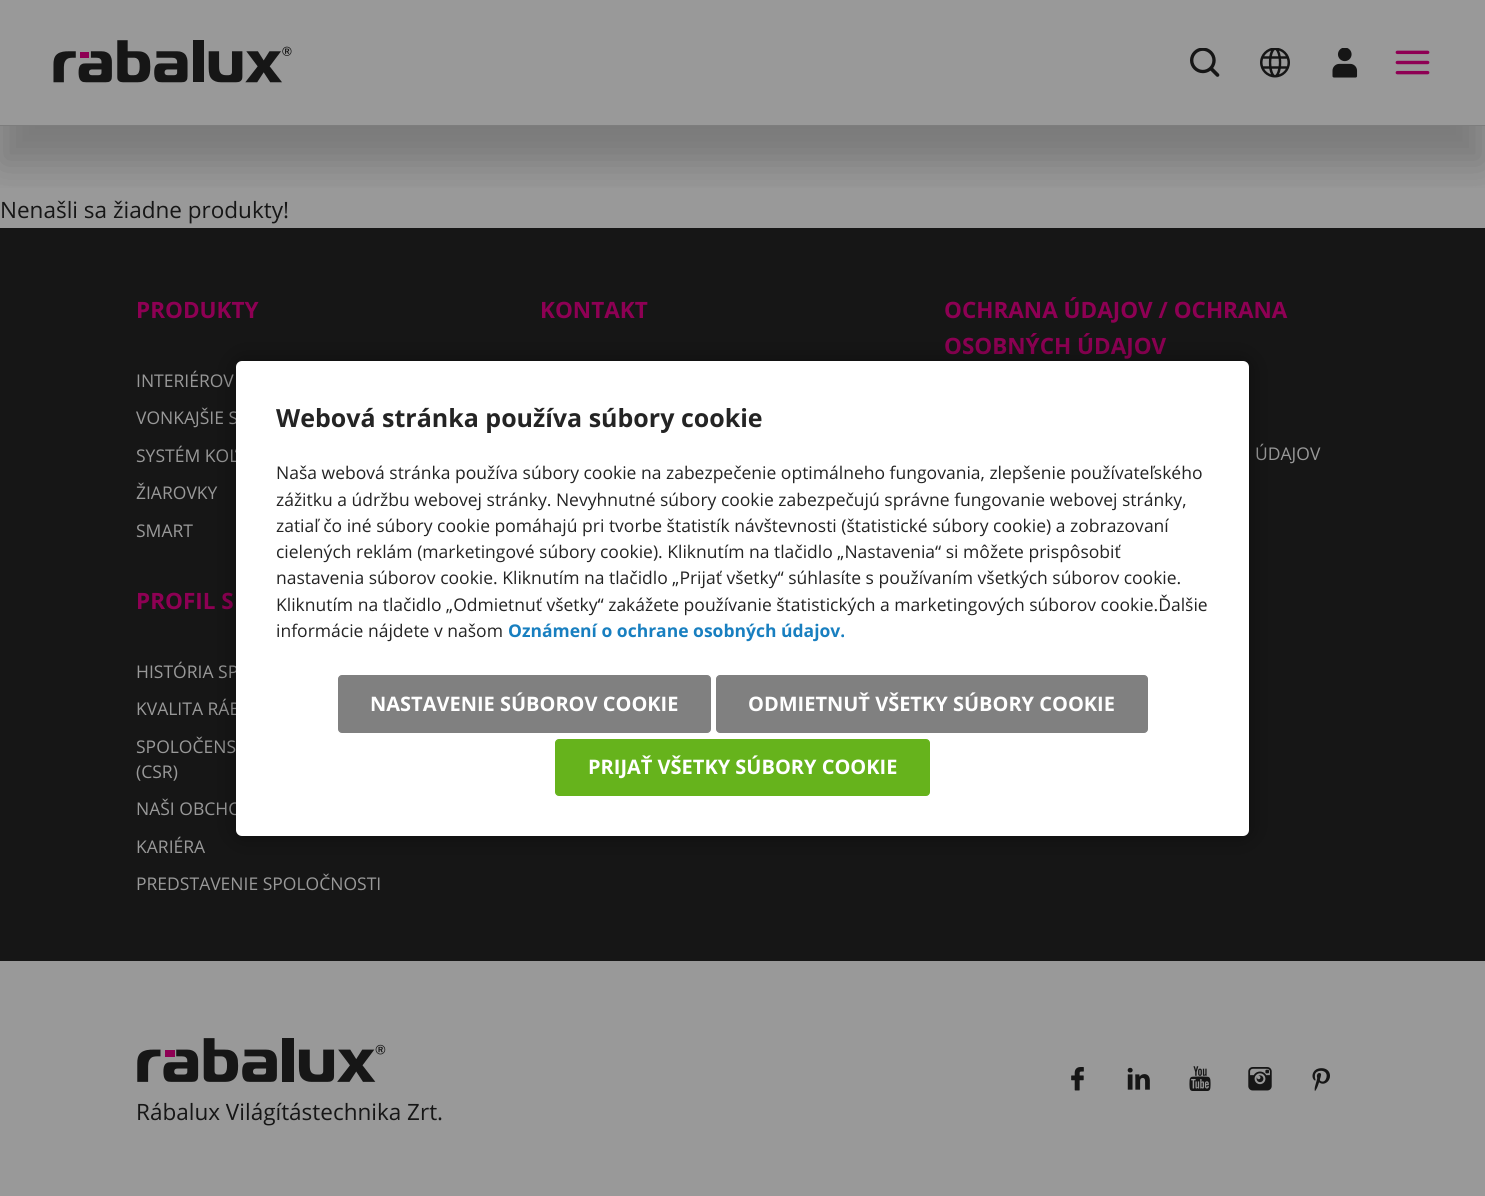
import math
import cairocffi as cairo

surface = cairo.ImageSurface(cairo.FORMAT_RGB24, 1485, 1196)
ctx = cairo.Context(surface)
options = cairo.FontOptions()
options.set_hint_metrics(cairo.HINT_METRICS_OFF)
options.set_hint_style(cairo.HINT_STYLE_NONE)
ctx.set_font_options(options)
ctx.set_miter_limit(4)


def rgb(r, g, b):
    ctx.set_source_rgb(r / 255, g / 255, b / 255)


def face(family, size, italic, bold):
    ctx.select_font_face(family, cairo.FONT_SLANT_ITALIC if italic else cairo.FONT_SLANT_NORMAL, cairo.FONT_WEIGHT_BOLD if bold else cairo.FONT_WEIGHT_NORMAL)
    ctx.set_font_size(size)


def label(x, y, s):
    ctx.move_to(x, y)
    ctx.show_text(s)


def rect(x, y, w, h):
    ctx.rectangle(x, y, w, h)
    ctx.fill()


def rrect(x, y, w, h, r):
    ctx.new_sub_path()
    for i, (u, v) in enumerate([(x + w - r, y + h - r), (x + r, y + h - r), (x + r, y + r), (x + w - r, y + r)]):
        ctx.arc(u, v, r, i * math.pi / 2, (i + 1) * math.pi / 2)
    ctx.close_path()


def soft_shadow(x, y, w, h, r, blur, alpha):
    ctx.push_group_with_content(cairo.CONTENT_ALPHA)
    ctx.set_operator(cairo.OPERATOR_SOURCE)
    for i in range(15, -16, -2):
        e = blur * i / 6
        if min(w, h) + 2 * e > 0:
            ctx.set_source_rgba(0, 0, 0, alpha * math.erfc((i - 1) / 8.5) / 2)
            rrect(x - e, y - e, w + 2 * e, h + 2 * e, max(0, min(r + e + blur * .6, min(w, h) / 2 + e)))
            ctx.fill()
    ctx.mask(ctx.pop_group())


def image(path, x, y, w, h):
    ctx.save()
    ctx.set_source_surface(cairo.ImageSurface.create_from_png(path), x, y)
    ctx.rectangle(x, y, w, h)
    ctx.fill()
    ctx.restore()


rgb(153, 153, 153)
ctx.paint()
ctx.save()
ctx.rectangle(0, 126, 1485, 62)
ctx.clip()
rgb(0, 0, 0)
soft_shadow(0, 38, 1485, 126, 0, 19, 0.2)
ctx.restore()
rgb(125, 125, 125)
rect(0, 125, 1485, 1)
image('image0.png', 53, 40, 239, 43)
image('image1.png', 1190, 48, 30, 29)
image('image2.png', 1260, 48, 30, 30)
image('image3.png', 1332, 48, 26, 30)
image('image4.png', 1395, 50, 35, 25)
face('Open Sans', 22.5, 0, 0)
rgb(22, 22, 22)
label(0, 218, 'Nenašli sa žiadne produkty!')
rect(0, 228, 1485, 733)
face('Open Sans', 22.5, 0, 1)
rgb(142, 0, 84)
label(136, 318, 'PRODUKTY')
face('Open Sans', 17.5, 0, 0)
rgb(153, 153, 153)
label(136, 387, 'INTERIÉROV')
label(136, 424, 'VONKAJŠIE S')
label(136, 462, 'SYSTÉM KOĽ')
label(136, 499, 'ŽIAROVKY')
label(136, 537, 'SMART')
face('Open Sans', 22.5, 0, 1)
rgb(142, 0, 84)
label(540, 318, 'KONTAKT')
label(944, 318, 'OCHRANA ÚDAJOV / OCHRANA')
label(944, 354, 'OSOBNÝCH ÚDAJOV')
face('Open Sans', 17.5, 0, 0)
rgb(153, 153, 153)
label(1255, 460, 'ÚDAJOV')
face('Open Sans', 22.5, 0, 1)
rgb(142, 0, 84)
label(136, 609, 'PROFIL S')
face('Open Sans', 17.5, 0, 0)
rgb(153, 153, 153)
label(136, 678, 'HISTÓRIA SP')
label(136, 715, 'KVALITA RÁB')
label(136, 753, 'SPOLOČENS')
label(136, 778, '(CSR)')
label(136, 815, 'NAŠI OBCHO')
label(136, 853, 'KARIÉRA')
label(136, 890, 'PREDSTAVENIE SPOLOČNOSTI')
image('image5.png', 1071, 1067, 13, 24)
image('image6.png', 1127, 1067, 23, 23)
image('image7.png', 1189, 1066, 22, 25)
image('image8.png', 1248, 1067, 24, 24)
image('image9.png', 1312, 1068, 18, 23)
image('image10.png', 137, 1038, 249, 44)
face('Open Sans', 22.5, 0, 0)
rgb(22, 22, 22)
label(136, 1120, 'Rábalux Világítástechnika Zrt.')
rgb(0, 0, 0)
soft_shadow(236, 361, 1013, 475, 6, 12.5, 0.4)
rgb(255, 255, 255)
rrect(236, 361, 1013, 475, 6)
ctx.fill()
face('Open Sans', 25, 0, 1)
rgb(36, 36, 36)
label(276, 427, 'Webová stránka používa súbory cookie')
face('Open Sans', 17.5, 0, 0)
label(276, 479, 'Naša webová stránka používa súbory cookie na zabezpečenie optimálneho fungovania, zlepšenie používateľského')
label(276, 506, 'zážitku a údržbu webovej stránky. Nevyhnutné súbory cookie zabezpečujú správne fungovanie webovej stránky,')
label(276, 532, 'zatiaľ čo iné súbory cookie pomáhajú pri tvorbe štatistík návštevnosti (štatistické súbory cookie) a zobrazovaní')
label(276, 558, 'cielených reklám (marketingové súbory cookie). Kliknutím na tlačidlo „Nastavenia“ si môžete prispôsobiť')
label(276, 584, 'nastavenia súborov cookie. Kliknutím na tlačidlo „Prijať všetky“ súhlasíte s používaním všetkých súborov cookie.')
label(276, 611, 'Kliknutím na tlačidlo „Odmietnuť všetky“ zakážete používanie štatistických a marketingových súborov cookie.Ďalšie')
label(276, 637, 'informácie nájdete v našom')
face('Open Sans', 17.5, 0, 1)
rgb(24, 127, 192)
label(508, 637, 'Oznámení o ochrane osobných údajov.')
rgb(128, 128, 128)
rrect(338.5, 675.5, 372, 57, 3.5)
ctx.fill_preserve()
ctx.set_line_width(1)
ctx.stroke()
face('Open Sans', 20, 0, 1)
rgb(255, 255, 255)
label(370, 711, 'NASTAVENIE SÚBOROV COOKIE')
rgb(128, 128, 128)
rrect(716.5, 675.5, 431, 57, 3.5)
ctx.fill_preserve()
ctx.stroke()
rgb(255, 255, 255)
label(748, 711, 'ODMIETNUŤ VŠETKY SÚBORY COOKIE')
rgb(102, 179, 28)
rrect(555.5, 739.5, 374, 56, 3.5)
ctx.fill_preserve()
ctx.stroke()
rgb(255, 255, 255)
label(588, 774, 'PRIJAŤ VŠETKY SÚBORY COOKIE')
surface.write_to_png('render.png')
